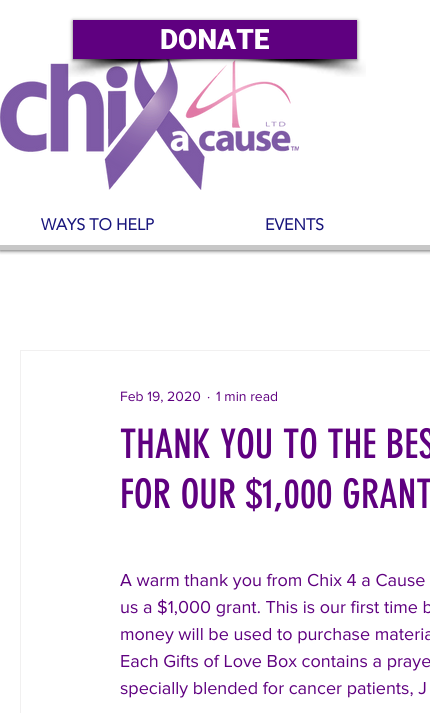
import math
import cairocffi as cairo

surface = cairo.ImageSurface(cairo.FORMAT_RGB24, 430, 713)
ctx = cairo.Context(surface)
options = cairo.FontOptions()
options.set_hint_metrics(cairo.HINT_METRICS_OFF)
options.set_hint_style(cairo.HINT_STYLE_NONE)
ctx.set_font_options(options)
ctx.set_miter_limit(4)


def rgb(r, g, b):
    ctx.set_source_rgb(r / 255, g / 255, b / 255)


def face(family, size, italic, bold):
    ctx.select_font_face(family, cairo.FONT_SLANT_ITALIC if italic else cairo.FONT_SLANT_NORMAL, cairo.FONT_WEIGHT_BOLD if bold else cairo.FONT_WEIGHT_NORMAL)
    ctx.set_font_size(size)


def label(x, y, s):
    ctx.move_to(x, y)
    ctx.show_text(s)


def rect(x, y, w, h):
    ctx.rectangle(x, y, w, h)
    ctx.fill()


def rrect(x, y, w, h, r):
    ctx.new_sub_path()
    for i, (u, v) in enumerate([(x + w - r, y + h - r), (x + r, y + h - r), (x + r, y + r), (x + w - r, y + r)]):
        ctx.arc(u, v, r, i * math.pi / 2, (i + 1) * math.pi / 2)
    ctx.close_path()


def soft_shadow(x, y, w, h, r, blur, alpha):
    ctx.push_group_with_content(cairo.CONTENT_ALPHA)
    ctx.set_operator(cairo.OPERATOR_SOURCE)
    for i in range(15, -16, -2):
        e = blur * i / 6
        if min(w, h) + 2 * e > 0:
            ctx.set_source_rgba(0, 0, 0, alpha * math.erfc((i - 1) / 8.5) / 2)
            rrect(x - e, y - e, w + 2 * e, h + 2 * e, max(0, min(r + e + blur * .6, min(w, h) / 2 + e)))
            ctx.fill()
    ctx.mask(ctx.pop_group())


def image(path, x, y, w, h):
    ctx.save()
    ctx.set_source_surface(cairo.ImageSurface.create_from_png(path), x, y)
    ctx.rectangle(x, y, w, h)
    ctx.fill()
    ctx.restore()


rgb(255, 255, 255)
ctx.paint()
ctx.save()
ctx.rectangle(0, 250, 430, 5)
ctx.clip()
rgb(0, 0, 0)
soft_shadow(0, 1, 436, 250, 0, 2, 0.6)
ctx.restore()
image('image2.png', 0, 59, 299, 131)
image('image0.png', 65, 59, 153, 18)
image('image1.png', 212, 59, 154, 18)
rgb(0, 0, 0)
soft_shadow(73, 21, 284, 39, 0, 2, 0.6)
rgb(95, 0, 128)
rect(73, 20, 284, 39)
face('Roboto Black', 28, 0, 0)
rgb(255, 255, 255)
label(160, 49, 'DONATE')
rgb(199, 199, 199)
rect(0, 245, 430, 5)
face('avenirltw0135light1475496', 16, 0, 1)
rgb(24, 21, 124)
label(41, 230, 'WAYS TO HELP')
label(265, 230, 'EVENTS')
ctx.rectangle(20.5, 350.5, 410, 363)
rgb(241, 240, 240)
ctx.set_line_width(1)
ctx.stroke()
face('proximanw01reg', 14, 0, 0)
rgb(95, 0, 128)
label(120, 401, 'Feb 19, 2020')
label(207, 401, '·')
label(216, 401, '1 min read')
face('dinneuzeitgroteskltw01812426', 40, 0, 0)
label(120, 458, 'THANK YOU TO THE BES')
label(120, 508, 'FOR OUR $1,000 GRANT')
face('proximanw01reg', 18, 0, 0)
label(120, 586, 'A warm thank you from Chix 4 a Cause')
label(120, 613, 'us a $1,000 grant. This is our first time b')
label(120, 640, 'money will be used to purchase materia')
label(120, 667, 'Each Gifts of Love Box contains a praye')
label(120, 694, 'specially blended for cancer patients, J')
surface.write_to_png('render.png')
